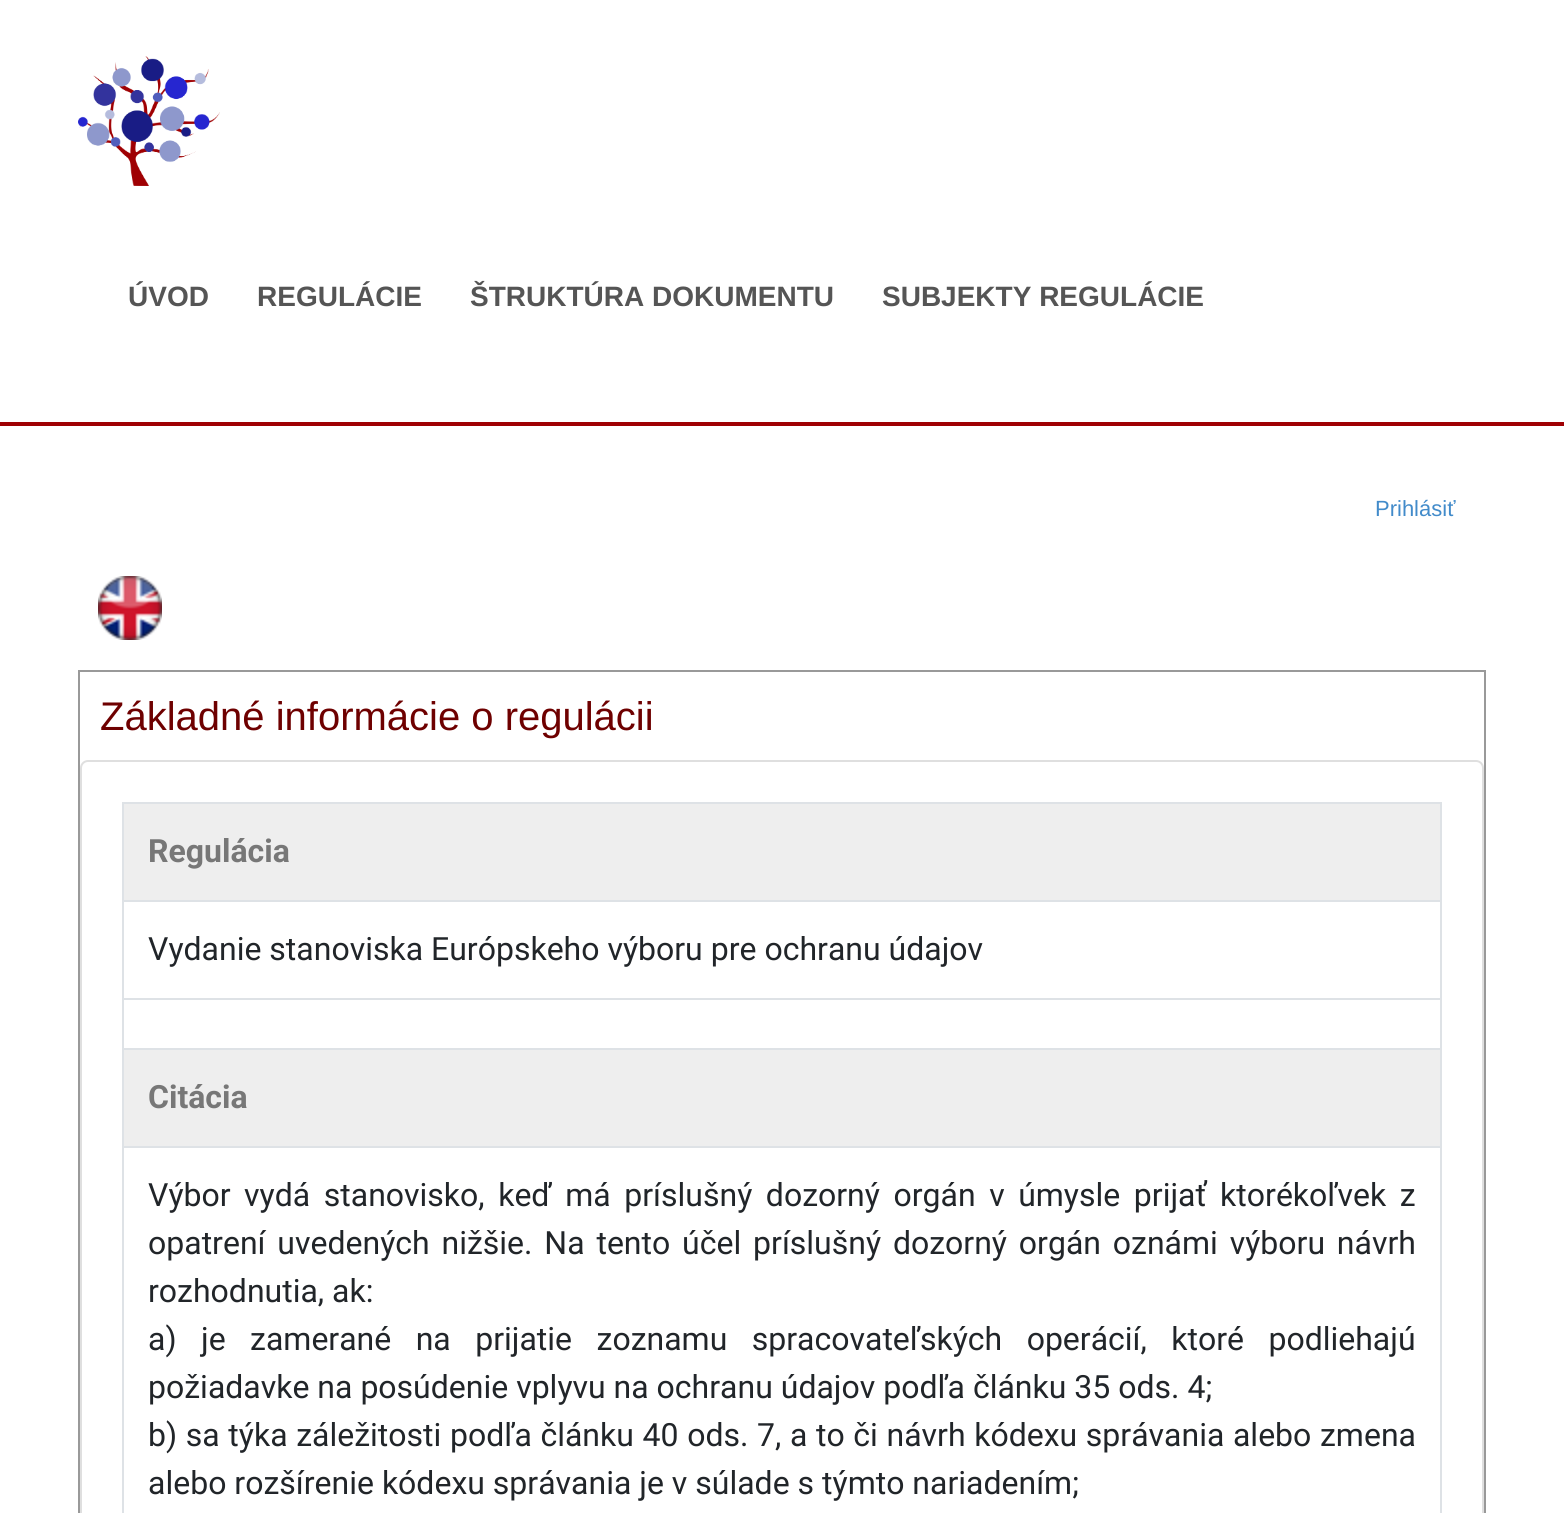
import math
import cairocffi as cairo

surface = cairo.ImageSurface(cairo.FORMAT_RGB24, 1564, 1513)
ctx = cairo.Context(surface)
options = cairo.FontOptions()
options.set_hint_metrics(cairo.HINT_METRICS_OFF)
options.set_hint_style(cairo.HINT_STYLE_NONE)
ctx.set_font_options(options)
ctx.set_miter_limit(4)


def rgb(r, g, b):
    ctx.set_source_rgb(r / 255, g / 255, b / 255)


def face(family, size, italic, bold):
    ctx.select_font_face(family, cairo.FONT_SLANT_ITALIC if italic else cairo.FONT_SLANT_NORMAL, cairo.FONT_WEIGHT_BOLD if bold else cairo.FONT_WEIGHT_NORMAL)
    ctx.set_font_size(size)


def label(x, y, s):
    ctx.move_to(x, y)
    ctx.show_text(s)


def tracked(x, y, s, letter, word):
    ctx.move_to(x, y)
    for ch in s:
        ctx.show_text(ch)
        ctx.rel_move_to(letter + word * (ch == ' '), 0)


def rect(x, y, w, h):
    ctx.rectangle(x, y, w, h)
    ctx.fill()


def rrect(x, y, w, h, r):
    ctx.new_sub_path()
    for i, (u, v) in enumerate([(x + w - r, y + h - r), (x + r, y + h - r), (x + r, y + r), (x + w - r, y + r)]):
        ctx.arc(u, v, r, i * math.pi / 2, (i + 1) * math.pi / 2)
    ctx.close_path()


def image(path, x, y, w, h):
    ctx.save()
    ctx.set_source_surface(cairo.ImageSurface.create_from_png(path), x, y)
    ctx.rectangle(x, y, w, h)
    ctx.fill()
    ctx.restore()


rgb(255, 255, 255)
ctx.paint()
rgb(159, 0, 3)
rect(0, 422, 1564, 4)
image('image0.png', 78, 56, 142, 130)
face('Liberation Sans', 28, 0, 1)
rgb(85, 85, 85)
label(128, 306, 'ÚVOD')
label(257, 306, 'REGULÁCIE')
label(470, 306, 'ŠTRUKTÚRA DOKUMENTU')
label(882, 306, 'SUBJEKTY REGULÁCIE')
face('Liberation Sans', 22, 0, 0)
rgb(66, 139, 202)
label(1375, 516, 'Prihlásiť')
image('image1.png', 98, 576, 64, 64)
ctx.rectangle(79, 671, 1406, 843)
rgb(153, 153, 153)
ctx.stroke()
face('Liberation Sans', 40, 0, 0)
rgb(110, 0, 0)
label(100, 730, 'Základné informácie o regulácii')
rrect(81, 761, 1402, 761, 7)
rgb(223, 223, 223)
ctx.stroke()
rgb(222, 226, 230)
rect(122, 802, 1320, 2)
rect(1440, 802, 2, 711)
rect(122, 802, 2, 711)
rgb(238, 238, 238)
rect(124, 804, 1316, 96)
face('Roboto', 32, 0, 1)
rgb(119, 119, 119)
label(148, 862, 'Regulácia')
rgb(222, 226, 230)
rect(122, 900, 1320, 2)
face('Roboto', 32, 0, 0)
rgb(33, 37, 41)
label(148, 960, 'Vydanie stanoviska Európskeho výboru pre ochranu údajov')
rgb(222, 226, 230)
rect(122, 998, 1320, 2)
rgb(238, 238, 238)
rect(124, 1050, 1316, 96)
rgb(222, 226, 230)
rect(122, 1048, 1320, 2)
face('Roboto', 32, 0, 1)
rgb(119, 119, 119)
label(148, 1108, 'Citácia')
rgb(222, 226, 230)
rect(122, 1146, 1320, 2)
face('Roboto', 32, 0, 0)
rgb(33, 37, 41)
tracked(148, 1206, 'Výbor vydá stanovisko, keď má príslušný dozorný orgán v úmysle prijať ktorékoľvek z', 0, 5.6)
tracked(148, 1254, 'opatrení uvedených nižšie. Na tento účel príslušný dozorný orgán oznámi výboru návrh', 0, 3.9)
label(148, 1302, 'rozhodnutia, ak:')
tracked(148, 1350, 'a) je zamerané na prijatie zoznamu spracovateľských operácií, ktoré podliehajú', 0, 16.5)
label(148, 1398, 'požiadavke na posúdenie vplyvu na ochranu údajov podľa článku 35 ods. 4;')
tracked(148, 1446, 'b) sa týka záležitosti podľa článku 40 ods. 7, a to či návrh kódexu správania alebo zmena', 0, 0.7)
label(148, 1494, 'alebo rozšírenie kódexu správania je v súlade s týmto nariadením;')
surface.write_to_png('render.png')
